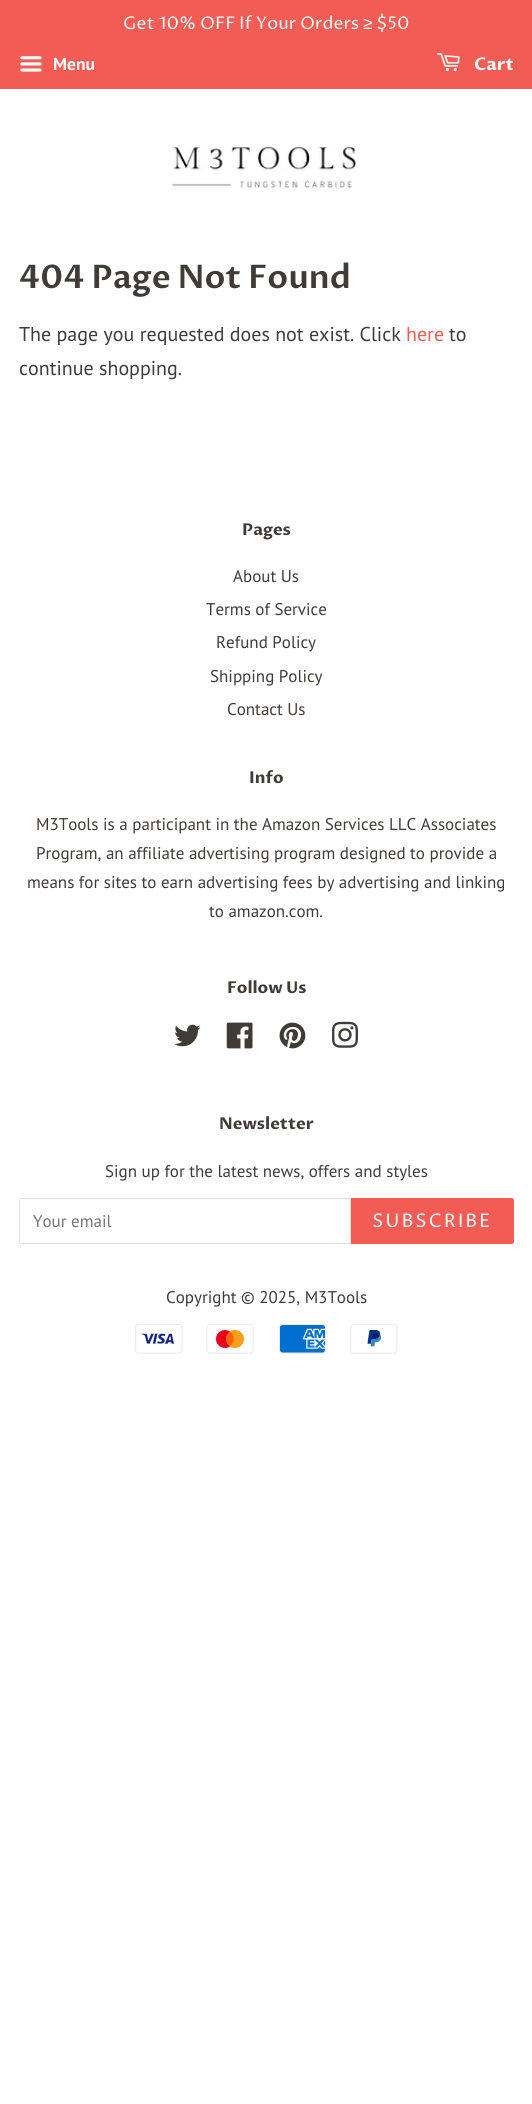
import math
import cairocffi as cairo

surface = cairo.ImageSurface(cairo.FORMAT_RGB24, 532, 2104)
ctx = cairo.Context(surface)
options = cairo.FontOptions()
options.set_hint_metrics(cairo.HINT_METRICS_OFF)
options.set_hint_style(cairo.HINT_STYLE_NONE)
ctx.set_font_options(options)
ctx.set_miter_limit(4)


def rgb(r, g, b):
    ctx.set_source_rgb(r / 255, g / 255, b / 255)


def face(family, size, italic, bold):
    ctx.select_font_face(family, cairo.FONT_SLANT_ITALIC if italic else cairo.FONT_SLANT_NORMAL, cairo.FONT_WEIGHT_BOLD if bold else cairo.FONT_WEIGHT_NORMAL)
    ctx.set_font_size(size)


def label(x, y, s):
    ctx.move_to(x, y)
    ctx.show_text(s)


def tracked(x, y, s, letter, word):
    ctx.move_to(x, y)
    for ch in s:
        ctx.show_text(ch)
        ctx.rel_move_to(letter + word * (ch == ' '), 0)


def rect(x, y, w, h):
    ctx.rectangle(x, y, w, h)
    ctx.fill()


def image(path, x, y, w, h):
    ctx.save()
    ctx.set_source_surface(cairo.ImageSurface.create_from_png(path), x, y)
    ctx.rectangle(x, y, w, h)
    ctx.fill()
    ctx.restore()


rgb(255, 255, 255)
ctx.paint()
rgb(242, 92, 84)
rect(0, 0, 532, 89)
face('Proza Libre', 17.5, 0, 0)
rgb(255, 255, 255)
label(123, 29, 'Get 10% OFF If Your Orders')
face('Liberation Sans', 17.5, 0, 0)
label(363, 29, '≥')
face('Proza Libre', 17.5, 0, 0)
label(376, 29, '$50')
image('image0.png', 20, 56, 22, 16)
face('PT Sans', 17.5, 0, 1)
label(53, 70, 'Menu')
image('image1.png', 436, 53, 24, 19)
face('Proza Libre', 17.5, 0, 1)
label(474, 70, 'Cart')
image('image2.png', 172, 147, 184, 42)
face('Proza Libre SemiBold', 32.5, 0, 0)
rgb(64, 59, 55)
label(19, 288, '404 Page Not Found')
face('PT Sans', 20, 0, 0)
label(19, 341, 'The page you requested does not exist. Click')
rgb(242, 92, 84)
label(406, 341, 'here')
rgb(64, 59, 55)
label(449, 341, 'to')
label(19, 375, 'continue shopping.')
face('Proza Libre', 16.25, 0, 1)
label(242, 535, 'Pages')
face('PT Sans', 17, 0, 0)
label(233, 582, 'About Us')
label(206, 615, 'Terms of Service')
label(216, 648, 'Refund Policy')
label(210, 682, 'Shipping Policy')
label(227, 715, 'Contact Us')
face('Proza Libre', 16.25, 0, 1)
label(249, 783, 'Info')
face('PT Sans', 17, 0, 0)
label(36, 830, 'M3Tools is a participant in the Amazon Services LLC Associates')
label(36, 859, 'Program, an affiliate advertising program designed to provide a')
label(27, 888, 'means for sites to earn advertising fees by advertising and linking')
label(209, 917, 'to amazon.com.')
face('Proza Libre', 16.25, 0, 1)
label(227, 993, 'Follow Us')
image('image3.png', 174, 1024, 27, 23)
image('image4.png', 226, 1022, 27, 27)
image('image5.png', 279, 1022, 27, 27)
image('image6.png', 332, 1021, 26, 27)
label(219, 1129, 'Newsletter')
face('PT Sans', 17, 0, 0)
label(105, 1177, 'Sign up for the latest news, offers and styles')
ctx.new_path()
ctx.move_to(21.5, 1198.5)
ctx.line_to(350.5, 1198.5)
ctx.line_to(350.5, 1243.5)
ctx.line_to(21.5, 1243.5)
ctx.curve_to(20.5, 1243.5, 19.5, 1242.5, 19.5, 1241.5)
ctx.line_to(19.5, 1200.5)
ctx.curve_to(19.5, 1199.5, 20.5, 1198.5, 21.5, 1198.5)
ctx.close_path()
rgb(226, 226, 225)
ctx.set_line_width(1)
ctx.stroke()
rgb(117, 117, 117)
label(33, 1227, 'Your email')
rgb(242, 92, 84)
ctx.new_path()
ctx.move_to(351, 1198)
ctx.line_to(511.5, 1198)
ctx.curve_to(513, 1198, 514, 1199, 514, 1200.5)
ctx.line_to(514, 1241.5)
ctx.curve_to(514, 1243, 513, 1244, 511.5, 1244)
ctx.line_to(351, 1244)
ctx.close_path()
ctx.fill()
face('Proza Libre', 18.75, 0, 0)
rgb(255, 255, 255)
tracked(372, 1227, 'SUBSCRIBE', 1.9, 0)
face('PT Sans', 17, 0, 0)
rgb(64, 59, 55)
label(166, 1303, 'Copyright © 2025, M3Tools')
image('image7.png', 135, 1324, 48, 30)
image('image8.png', 206, 1324, 48, 30)
image('image9.png', 279, 1324, 47, 30)
image('image10.png', 350, 1324, 48, 30)
surface.write_to_png('render.png')
